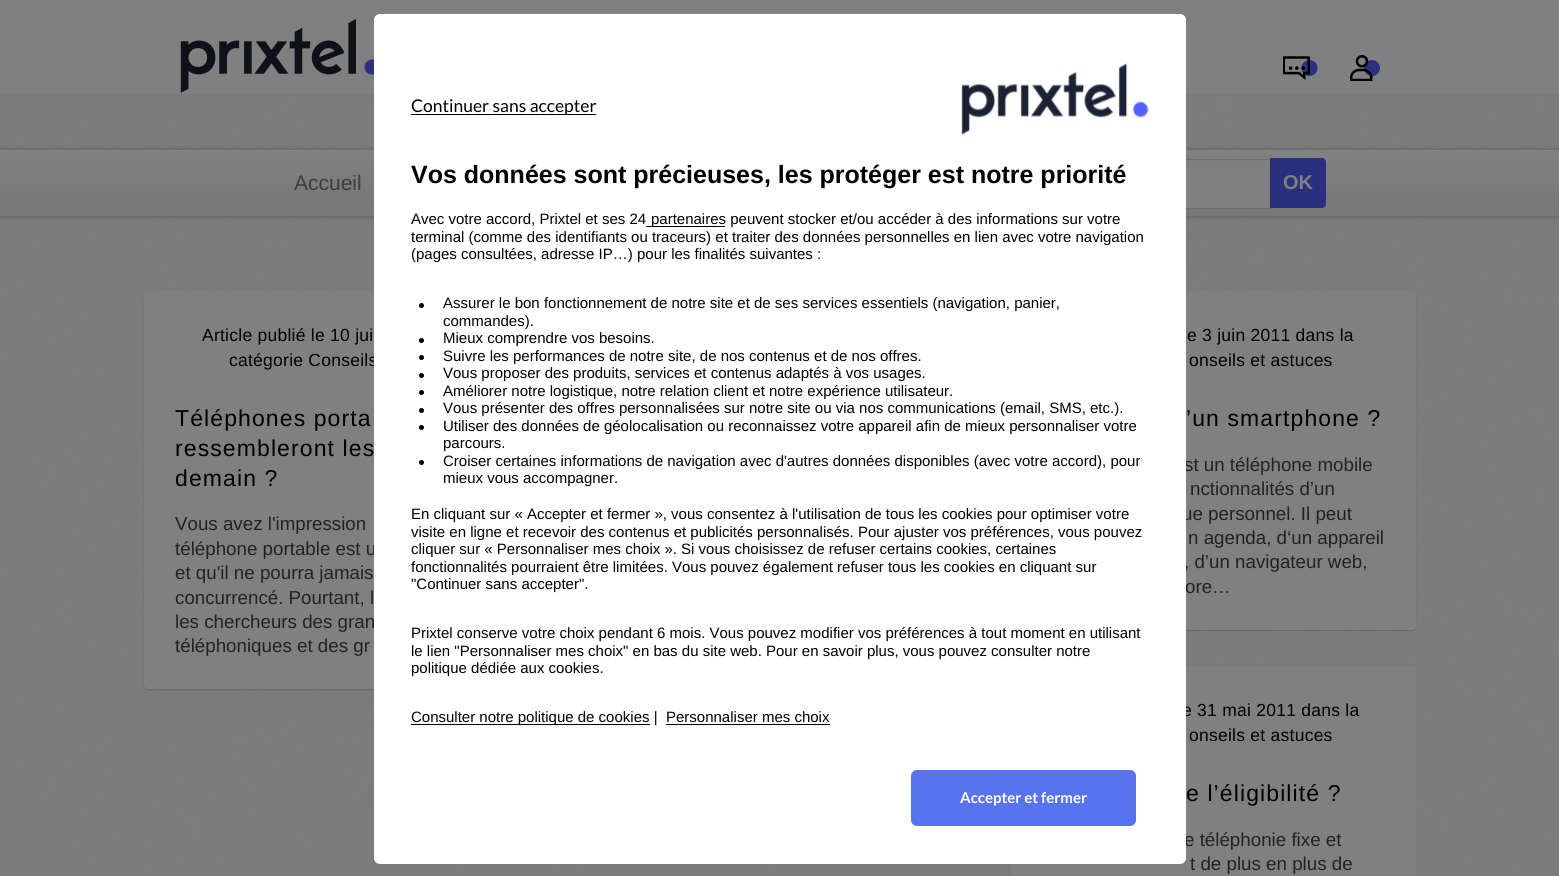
import math
import cairocffi as cairo

surface = cairo.ImageSurface(cairo.FORMAT_RGB24, 1559, 876)
ctx = cairo.Context(surface)
options = cairo.FontOptions()
options.set_hint_metrics(cairo.HINT_METRICS_OFF)
options.set_hint_style(cairo.HINT_STYLE_NONE)
ctx.set_font_options(options)
ctx.set_miter_limit(4)


def rgb(r, g, b):
    ctx.set_source_rgb(r / 255, g / 255, b / 255)


def face(family, size, italic, bold):
    ctx.select_font_face(family, cairo.FONT_SLANT_ITALIC if italic else cairo.FONT_SLANT_NORMAL, cairo.FONT_WEIGHT_BOLD if bold else cairo.FONT_WEIGHT_NORMAL)
    ctx.set_font_size(size)


def label(x, y, s):
    ctx.move_to(x, y)
    ctx.show_text(s)


def tracked(x, y, s, letter, word):
    ctx.move_to(x, y)
    for ch in s:
        ctx.show_text(ch)
        ctx.rel_move_to(letter + word * (ch == ' '), 0)


def rect(x, y, w, h):
    ctx.rectangle(x, y, w, h)
    ctx.fill()


def rrect(x, y, w, h, r):
    ctx.new_sub_path()
    for i, (u, v) in enumerate([(x + w - r, y + h - r), (x + r, y + h - r), (x + r, y + r), (x + w - r, y + r)]):
        ctx.arc(u, v, r, i * math.pi / 2, (i + 1) * math.pi / 2)
    ctx.close_path()


def soft_shadow(x, y, w, h, r, blur, alpha):
    ctx.push_group_with_content(cairo.CONTENT_ALPHA)
    ctx.set_operator(cairo.OPERATOR_SOURCE)
    for i in range(15, -16, -2):
        e = blur * i / 6
        if min(w, h) + 2 * e > 0:
            ctx.set_source_rgba(0, 0, 0, alpha * math.erfc((i - 1) / 8.5) / 2)
            rrect(x - e, y - e, w + 2 * e, h + 2 * e, max(0, min(r + e + blur * .6, min(w, h) / 2 + e)))
            ctx.fill()
    ctx.mask(ctx.pop_group())


def image(path, x, y, w, h):
    ctx.save()
    ctx.set_source_surface(cairo.ImageSurface.create_from_png(path), x, y)
    ctx.rectangle(x, y, w, h)
    ctx.fill()
    ctx.restore()


rgb(124, 124, 124)
ctx.paint()
image('image0.png', 0, 94, 1559, 782)
rgb(128, 128, 128)
rect(0, 0, 1559, 94)
image('image1.png', 180, 19, 194, 74)
image('image2.png', 1283, 56, 35, 24)
image('image3.png', 1350, 55, 30, 26)
rgb(0, 0, 0)
soft_shadow(0, 150, 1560, 66, 0, 3, 0.3)
gradient = cairo.LinearGradient(780, 151, 780, 216)
gradient.add_color_stop_rgba(0, 0.498, 0.502, 0.502, 1)
gradient.add_color_stop_rgba(1, 0.471, 0.467, 0.467, 1)
ctx.set_source(gradient)
rect(0, 151, 1559, 65)
rgb(128, 128, 128)
rect(0, 150, 1559, 1)
rect(1186, 165, 84, 43)
ctx.rectangle(1036.5, 159.5, 237, 49)
rgb(111, 111, 111)
ctx.set_line_width(1)
ctx.stroke()
rgb(0, 0, 0)
soft_shadow(144, 293, 405, 397, 4, 0.5, 0.15)
rgb(128, 128, 128)
rrect(144, 291, 405, 398, 4)
ctx.fill()
face('Liberation Sans', 17.5, 0, 0)
rgb(0, 0, 0)
tracked(229, 366, 'catégorie Conseils', 0.25, 0)
face('Liberation Sans', 18.75, 0, 0)
rgb(34, 34, 34)
label(175, 555, 'téléphone portable est u')
label(175, 628, 'les chercheurs des gran')
rgb(0, 0, 0)
soft_shadow(1011, 293, 405, 338, 4, 0.5, 0.15)
rgb(128, 128, 128)
rrect(1011, 291, 405, 339, 4)
ctx.fill()
rgb(34, 34, 34)
label(1184, 471, 'st un téléphone mobile')
label(1182, 520, 'ue personnel. Il peut')
label(1184, 568, ', d’un navigateur web,')
label(1185, 593, 'ore…')
rgb(128, 128, 128)
rrect(1011, 666, 405, 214, 4)
ctx.fill()
face('Liberation Sans', 17.5, 0, 0)
rgb(0, 0, 0)
tracked(1182, 716, 'e 31 mai 2011 dans la', 0.25, 0)
face('Liberation Sans', 18.75, 0, 0)
rgb(34, 34, 34)
label(1184, 846, 'e téléphonie fixe et')
rgb(255, 255, 255)
rrect(374, 14, 812, 850, 6)
ctx.fill()
rgb(0, 0, 0)
rect(411, 114, 185, 1)
face('Lato', 17.5, 0, 0)
label(411, 112, 'Continuer sans accepter')
rgb(88, 115, 238)
rrect(912.5, 771.5, 222, 53, 4.5)
ctx.fill_preserve()
ctx.set_line_width(3)
ctx.stroke()
face('Lato', 15, 0, 1)
rgb(255, 255, 255)
label(960, 803, 'Accepter et fermer')
image('image4.png', 961, 63, 188, 72)
face('Liberation Sans', 25, 0, 1)
rgb(0, 0, 0)
label(411, 183, 'Vos données sont précieuses, les protéger est notre priorité')
face('Liberation Sans', 15, 0, 0)
label(411, 224, 'Avec votre accord, Prixtel et ses 24')
rect(646, 226, 79, 1)
label(651, 224, 'partenaires peuvent stocker et/ou accéder à des informations sur votre')
label(411, 242, 'terminal (comme des identifiants ou traceurs) et traiter des données personnelles en lien avec votre navigation')
label(411, 259, '(pages consultées, adresse IP…) pour les finalités suivantes :')
ctx.new_path()
ctx.arc(421.5, 305.5, 2.5, 0, 2 * math.pi)
ctx.fill()
label(443, 308, 'Assurer le bon fonctionnement de notre site et de ses services essentiels (navigation, panier,')
label(443, 326, 'commandes).')
ctx.new_path()
ctx.arc(421.5, 340.5, 2.5, 0, 2 * math.pi)
ctx.fill()
label(443, 343, 'Mieux comprendre vos besoins.')
ctx.new_path()
ctx.arc(421.5, 357.5, 2.5, 0, 2 * math.pi)
ctx.fill()
label(443, 361, 'Suivre les performances de notre site, de nos contenus et de nos offres.')
ctx.new_path()
ctx.arc(421.5, 375.5, 2.5, 0, 2 * math.pi)
ctx.fill()
label(443, 378, 'Vous proposer des produits, services et contenus adaptés à vos usages.')
ctx.new_path()
ctx.arc(421.5, 392.5, 2.5, 0, 2 * math.pi)
ctx.fill()
label(443, 396, 'Améliorer notre logistique, notre relation client et notre expérience utilisateur.')
ctx.new_path()
ctx.arc(421.5, 410.5, 2.5, 0, 2 * math.pi)
ctx.fill()
label(443, 413, 'Vous présenter des offres personnalisées sur notre site ou via nos communications (email, SMS, etc.).')
ctx.new_path()
ctx.arc(421.5, 427.5, 2.5, 0, 2 * math.pi)
ctx.fill()
label(443, 431, 'Utiliser des données de géolocalisation ou reconnaissez votre appareil afin de mieux personnaliser votre')
label(443, 448, 'parcours.')
ctx.new_path()
ctx.arc(421.5, 462.5, 2.5, 0, 2 * math.pi)
ctx.fill()
label(443, 466, 'Croiser certaines informations de navigation avec d\'autres données disponibles (avec votre accord), pour')
label(443, 483, 'mieux vous accompagner.')
label(411, 519, 'En cliquant sur « Accepter et fermer », vous consentez à l\'utilisation de tous les cookies pour optimiser votre')
label(411, 537, 'visite en ligne et recevoir des contenus et publicités personnalisés. Pour ajuster vos préférences, vous pouvez')
label(411, 554, 'cliquer sur « Personnaliser mes choix ». Si vous choisissez de refuser certains cookies, certaines')
label(411, 572, 'fonctionnalités pourraient être limitées. Vous pouvez également refuser tous les cookies en cliquant sur')
label(411, 589, '"Continuer sans accepter".')
label(411, 638, 'Prixtel conserve votre choix pendant 6 mois. Vous pouvez modifier vos préférences à tout moment en utilisant')
label(411, 656, 'le lien "Personnaliser mes choix" en bas du site web. Pour en savoir plus, vous pouvez consulter notre')
label(411, 673, 'politique dédiée aux cookies.')
rect(411, 724, 239, 1)
label(411, 722, 'Consulter notre politique de cookies |')
label(666, 722, 'Personnaliser mes choix')
rect(666, 724, 164, 1)
face('Liberation Sans', 21, 0, 0)
rgb(60, 61, 64)
label(294, 190, 'Accueil')
rgb(42, 48, 128)
ctx.new_path()
ctx.move_to(1270, 158)
ctx.line_to(1322, 158)
ctx.curve_to(1324, 158, 1326, 160, 1326, 162)
ctx.line_to(1326, 204)
ctx.curve_to(1326, 206, 1324, 208, 1322, 208)
ctx.line_to(1270, 208)
ctx.close_path()
ctx.fill()
face('Liberation Sans', 20, 0, 1)
rgb(128, 128, 128)
label(1283, 189, 'OK')
face('Liberation Sans', 17.5, 0, 0)
rgb(0, 0, 0)
tracked(202, 341, 'Article publié le 10 jui', 0.25, 0)
face('Liberation Sans', 23, 0, 0)
tracked(175, 426, 'Téléphones porta', 1.1, 0)
tracked(175, 456, 'ressembleront les', 1.1, 0)
tracked(175, 486, 'demain ?', 1.1, 0)
face('Liberation Sans', 18.75, 0, 0)
rgb(34, 34, 34)
label(175, 530, 'Vous avez l\'impression')
label(175, 579, 'et qu\'il ne pourra jamais')
label(175, 604, 'concurrencé. Pourtant, l')
label(175, 652, 'téléphoniques et des gr')
face('Liberation Sans', 17.5, 0, 0)
rgb(0, 0, 0)
tracked(1187, 341, 'e 3 juin 2011 dans la', 0.25, 0)
tracked(1189, 366, 'onseils et astuces', 0.25, 0)
face('Liberation Sans', 23, 0, 0)
tracked(1186, 426, '’un smartphone ?', 1.1, 0)
face('Liberation Sans', 18.75, 0, 0)
rgb(34, 34, 34)
label(1190, 495, 'nctionnalités d’un')
label(1188, 544, 'n agenda, d‘un appareil')
face('Liberation Sans', 17.5, 0, 0)
rgb(0, 0, 0)
tracked(1189, 741, 'onseils et astuces', 0.25, 0)
face('Liberation Sans', 23, 0, 0)
tracked(1186, 801, 'e l’éligibilité ?', 1.1, 0)
face('Liberation Sans', 18.75, 0, 0)
rgb(34, 34, 34)
label(1190, 870, 't de plus en plus de')
surface.write_to_png('render.png')
